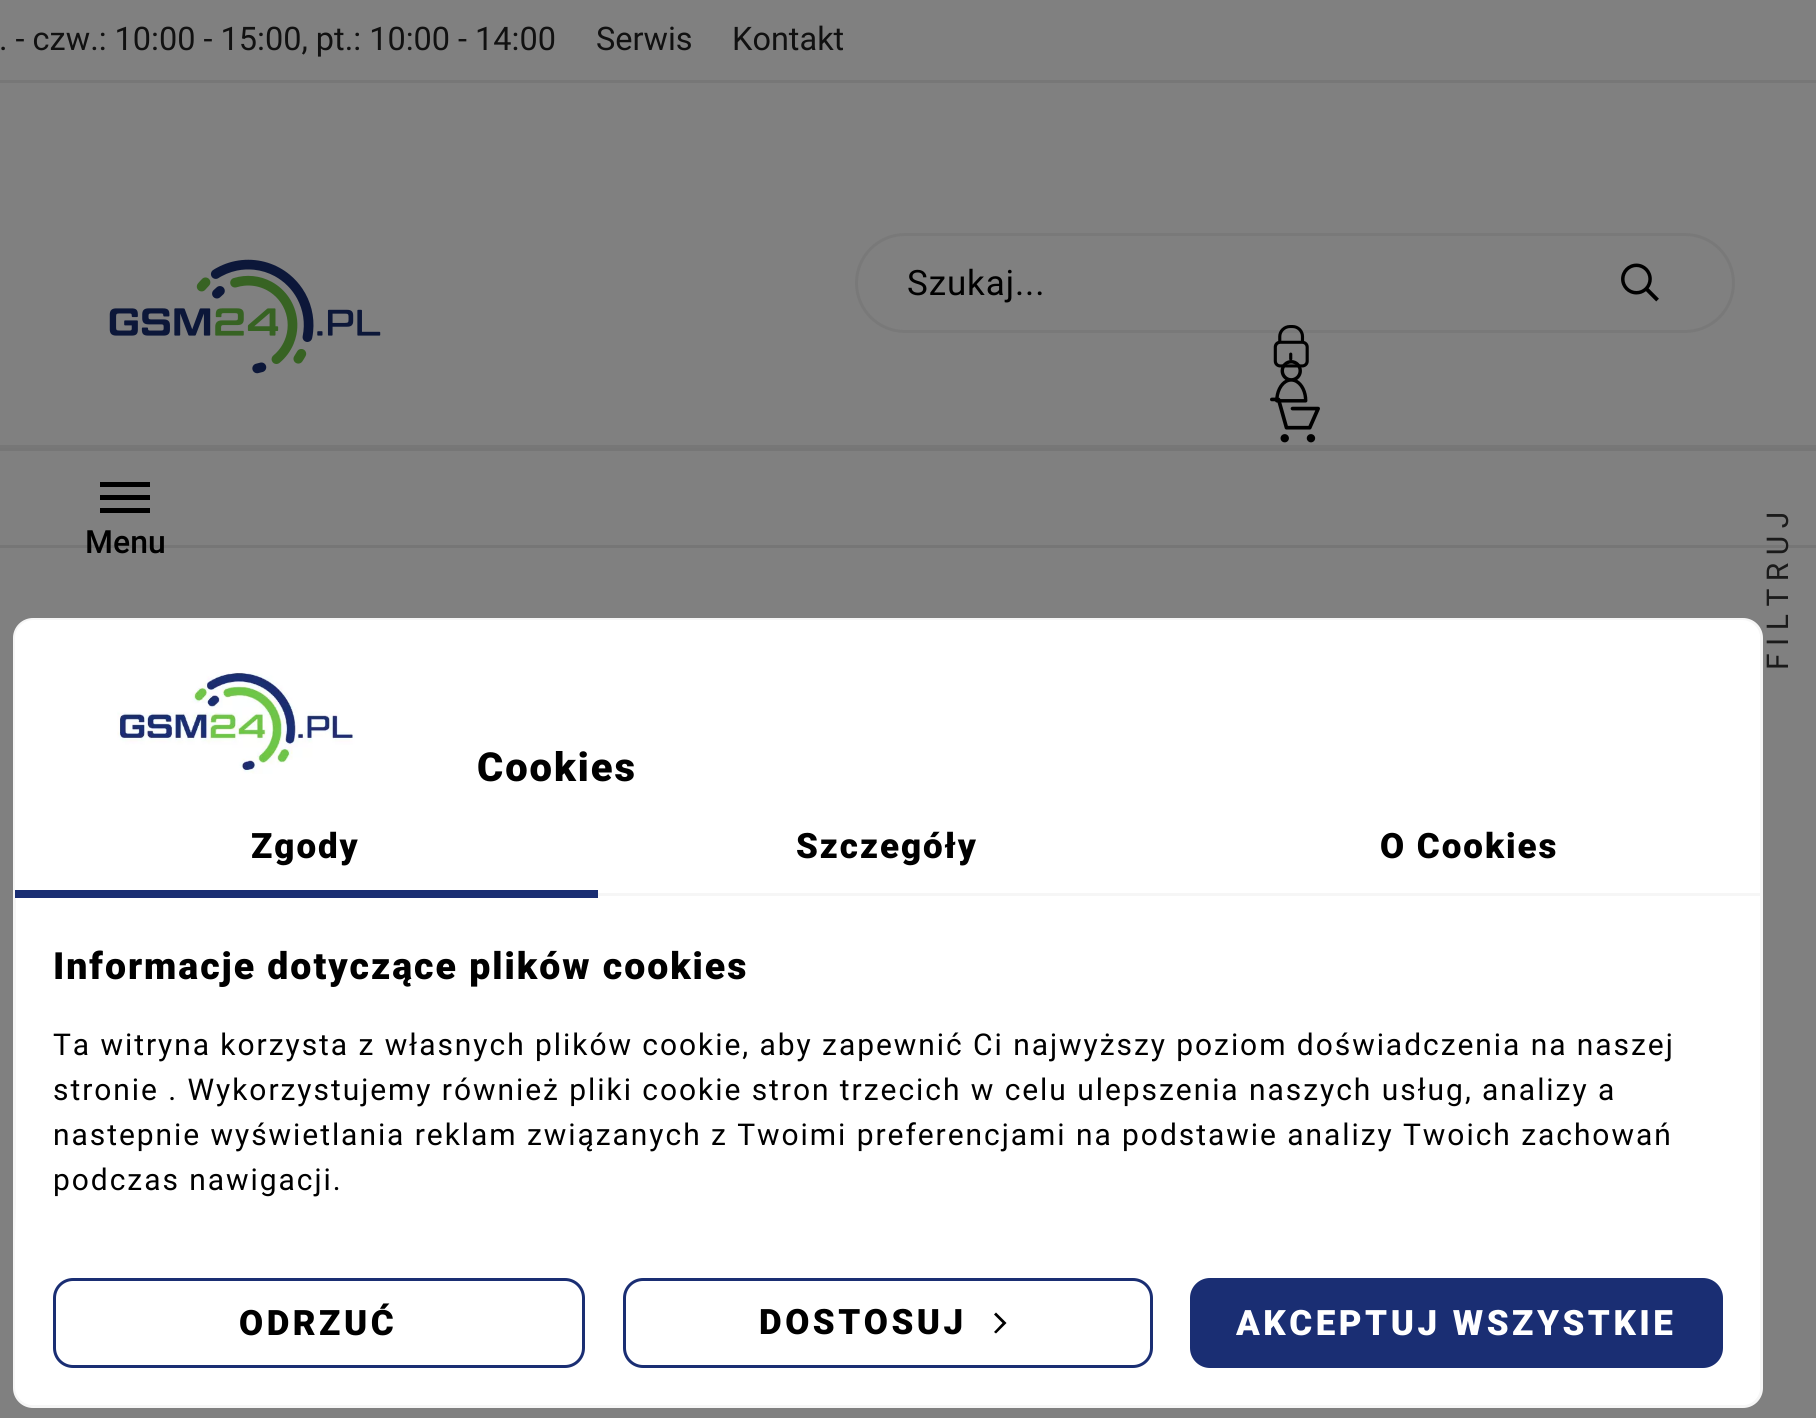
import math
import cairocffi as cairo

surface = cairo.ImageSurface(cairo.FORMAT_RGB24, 1816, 1418)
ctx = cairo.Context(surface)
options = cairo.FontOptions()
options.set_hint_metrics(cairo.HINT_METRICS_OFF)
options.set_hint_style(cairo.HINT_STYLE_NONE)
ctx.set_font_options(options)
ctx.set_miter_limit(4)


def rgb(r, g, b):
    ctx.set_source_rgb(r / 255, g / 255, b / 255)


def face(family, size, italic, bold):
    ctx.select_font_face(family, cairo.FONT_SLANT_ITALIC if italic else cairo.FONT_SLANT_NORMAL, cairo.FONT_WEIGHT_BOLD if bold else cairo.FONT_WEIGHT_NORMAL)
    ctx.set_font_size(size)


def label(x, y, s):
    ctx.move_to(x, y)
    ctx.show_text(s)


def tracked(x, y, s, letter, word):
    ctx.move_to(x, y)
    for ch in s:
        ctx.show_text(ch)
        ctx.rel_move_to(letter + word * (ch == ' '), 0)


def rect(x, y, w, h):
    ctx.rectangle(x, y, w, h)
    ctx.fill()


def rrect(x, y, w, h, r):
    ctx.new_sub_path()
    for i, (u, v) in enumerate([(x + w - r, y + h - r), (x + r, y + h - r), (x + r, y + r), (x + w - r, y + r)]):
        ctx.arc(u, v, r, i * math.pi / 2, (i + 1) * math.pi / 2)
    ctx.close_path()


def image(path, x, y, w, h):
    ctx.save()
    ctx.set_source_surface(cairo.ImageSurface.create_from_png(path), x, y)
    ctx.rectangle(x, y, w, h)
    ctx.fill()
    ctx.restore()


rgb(128, 128, 128)
ctx.paint()
rgb(119, 119, 119)
rect(0, 80, 1816, 3)
face('Roboto', 32.5, 0, 0)
rgb(17, 17, 17)
label(-1, 50, '. - czw.: 10:00 - 15:00, pt.: 10:00 - 14:00')
label(596, 50, 'Serwis')
label(732, 50, 'Kontakt')
rgb(119, 119, 119)
rect(0, 445, 1816, 3)
image('image0.png', 109, 259, 272, 115)
rrect(856.5, 234.5, 877, 97, 48.5)
rgb(121, 121, 121)
ctx.set_line_width(3)
ctx.stroke()
face('Roboto', 35, 0, 0)
rgb(0, 0, 0)
tracked(907, 295, 'Szukaj...', 0.9, 0)
image('image1.png', 1621, 263, 38, 39)
image('image2.png', 1273, 325, 36, 43)
image('image3.png', 1275, 360, 33, 43)
image('image4.png', 1270, 397, 50, 46)
rgb(118, 118, 118)
rect(0, 448, 1816, 3)
rect(0, 545, 1816, 3)
rgb(0, 0, 0)
ctx.new_path()
ctx.move_to(100, 513)
ctx.line_to(150, 513)
ctx.line_to(150, 508)
ctx.line_to(100, 508)
ctx.close_path()
ctx.move_to(100, 500)
ctx.line_to(150, 500)
ctx.line_to(150, 495)
ctx.line_to(100, 495)
ctx.close_path()
ctx.move_to(100, 482)
ctx.line_to(100, 487)
ctx.line_to(150, 487)
ctx.line_to(150, 482)
ctx.close_path()
ctx.fill()
face('Roboto Medium', 32, 0, 0)
label(85, 553, 'Menu')
rgb(255, 255, 255)
rrect(14.5, 619.5, 1747, 787, 18.5)
ctx.fill_preserve()
rgb(246, 246, 246)
ctx.stroke()
rgb(255, 255, 255)
ctx.new_path()
ctx.move_to(33, 620)
ctx.line_to(1742, 620)
ctx.curve_to(1752, 620, 1760, 628, 1760, 638)
ctx.line_to(1760, 805)
ctx.line_to(15, 805)
ctx.line_to(15, 638)
ctx.curve_to(15, 628, 23, 620, 33, 620)
ctx.close_path()
ctx.fill()
image('image5.png', 117, 672, 238, 102)
face('Roboto Black', 40, 0, 0)
rgb(0, 0, 0)
tracked(477, 781, 'Cookies', 1.95, 0)
rgb(255, 255, 255)
rect(15, 805, 1, 88)
rgb(246, 246, 246)
rect(598, 893, 1162, 3)
rgb(26, 46, 115)
rect(15, 890, 583, 8)
face('Roboto Black', 35, 0, 0)
rgb(0, 0, 0)
tracked(251, 858, 'Zgody', 1.95, 0)
tracked(796, 858, 'Szczegóły', 1.95, 0)
tracked(1380, 858, 'O Cookies', 1.95, 0)
face('Roboto Black', 37.5, 0, 0)
tracked(53, 979, 'Informacje dotyczące plików cookies', 1.95, 0)
face('Roboto', 30, 0, 0)
tracked(53, 1055, 'Ta witryna korzysta z własnych plików cookie, aby zapewnić Ci najwyższy poziom doświadczenia na naszej', 1.95, 0)
tracked(53, 1100, 'stronie . Wykorzystujemy również pliki cookie stron trzecich w celu ulepszenia naszych usług, analizy a', 1.95, 0)
tracked(53, 1145, 'nastepnie wyświetlania reklam związanych z Twoimi preferencjami na podstawie analizy Twoich zachowań', 1.95, 0)
tracked(53, 1190, 'podczas nawigacji.', 1.95, 0)
gradient = cairo.LinearGradient(888, 1405, 888, 1203)
gradient.add_color_stop_rgba(0.81, 1, 1, 1, 1)
gradient.add_color_stop_rgba(1, 1, 1, 1, 0)
ctx.set_source(gradient)
ctx.new_path()
ctx.move_to(15, 1203)
ctx.line_to(1760, 1203)
ctx.line_to(1760, 1387)
ctx.curve_to(1760, 1397, 1752, 1405, 1742, 1405)
ctx.line_to(33, 1405)
ctx.curve_to(23, 1405, 15, 1397, 15, 1387)
ctx.close_path()
ctx.fill()
rrect(54.5, 1279.5, 529, 87, 18.5)
rgb(26, 46, 115)
ctx.stroke()
face('Roboto Black', 35, 0, 0)
rgb(0, 0, 0)
tracked(239, 1335, 'ODRZUĆ', 3.5, 0)
rrect(624.5, 1279.5, 527, 87, 18.5)
rgb(26, 46, 115)
ctx.stroke()
rgb(0, 0, 0)
tracked(759, 1334, 'DOSTOSUJ', 3.5, 0)
ctx.new_path()
ctx.move_to(996, 1333.5)
ctx.line_to(994, 1332)
ctx.line_to(1002.5, 1323)
ctx.line_to(994, 1314.5)
ctx.line_to(996, 1312.5)
ctx.line_to(1006.5, 1323)
ctx.close_path()
ctx.fill()
rgb(26, 46, 115)
rrect(1191.5, 1279.5, 530, 87, 18.5)
ctx.fill_preserve()
ctx.stroke()
rgb(255, 255, 255)
tracked(1236, 1335, 'AKCEPTUJ WSZYSTKIE', 3.5, 0)
face('Roboto', 30, 0, 0)
rgb(26, 26, 26)
ctx.save()
ctx.translate(1788, 670)
ctx.rotate(-90 * math.pi / 180)
tracked(0, 0, 'FILTRUJ', 7.5, 0)
ctx.restore()
surface.write_to_png('render.png')
